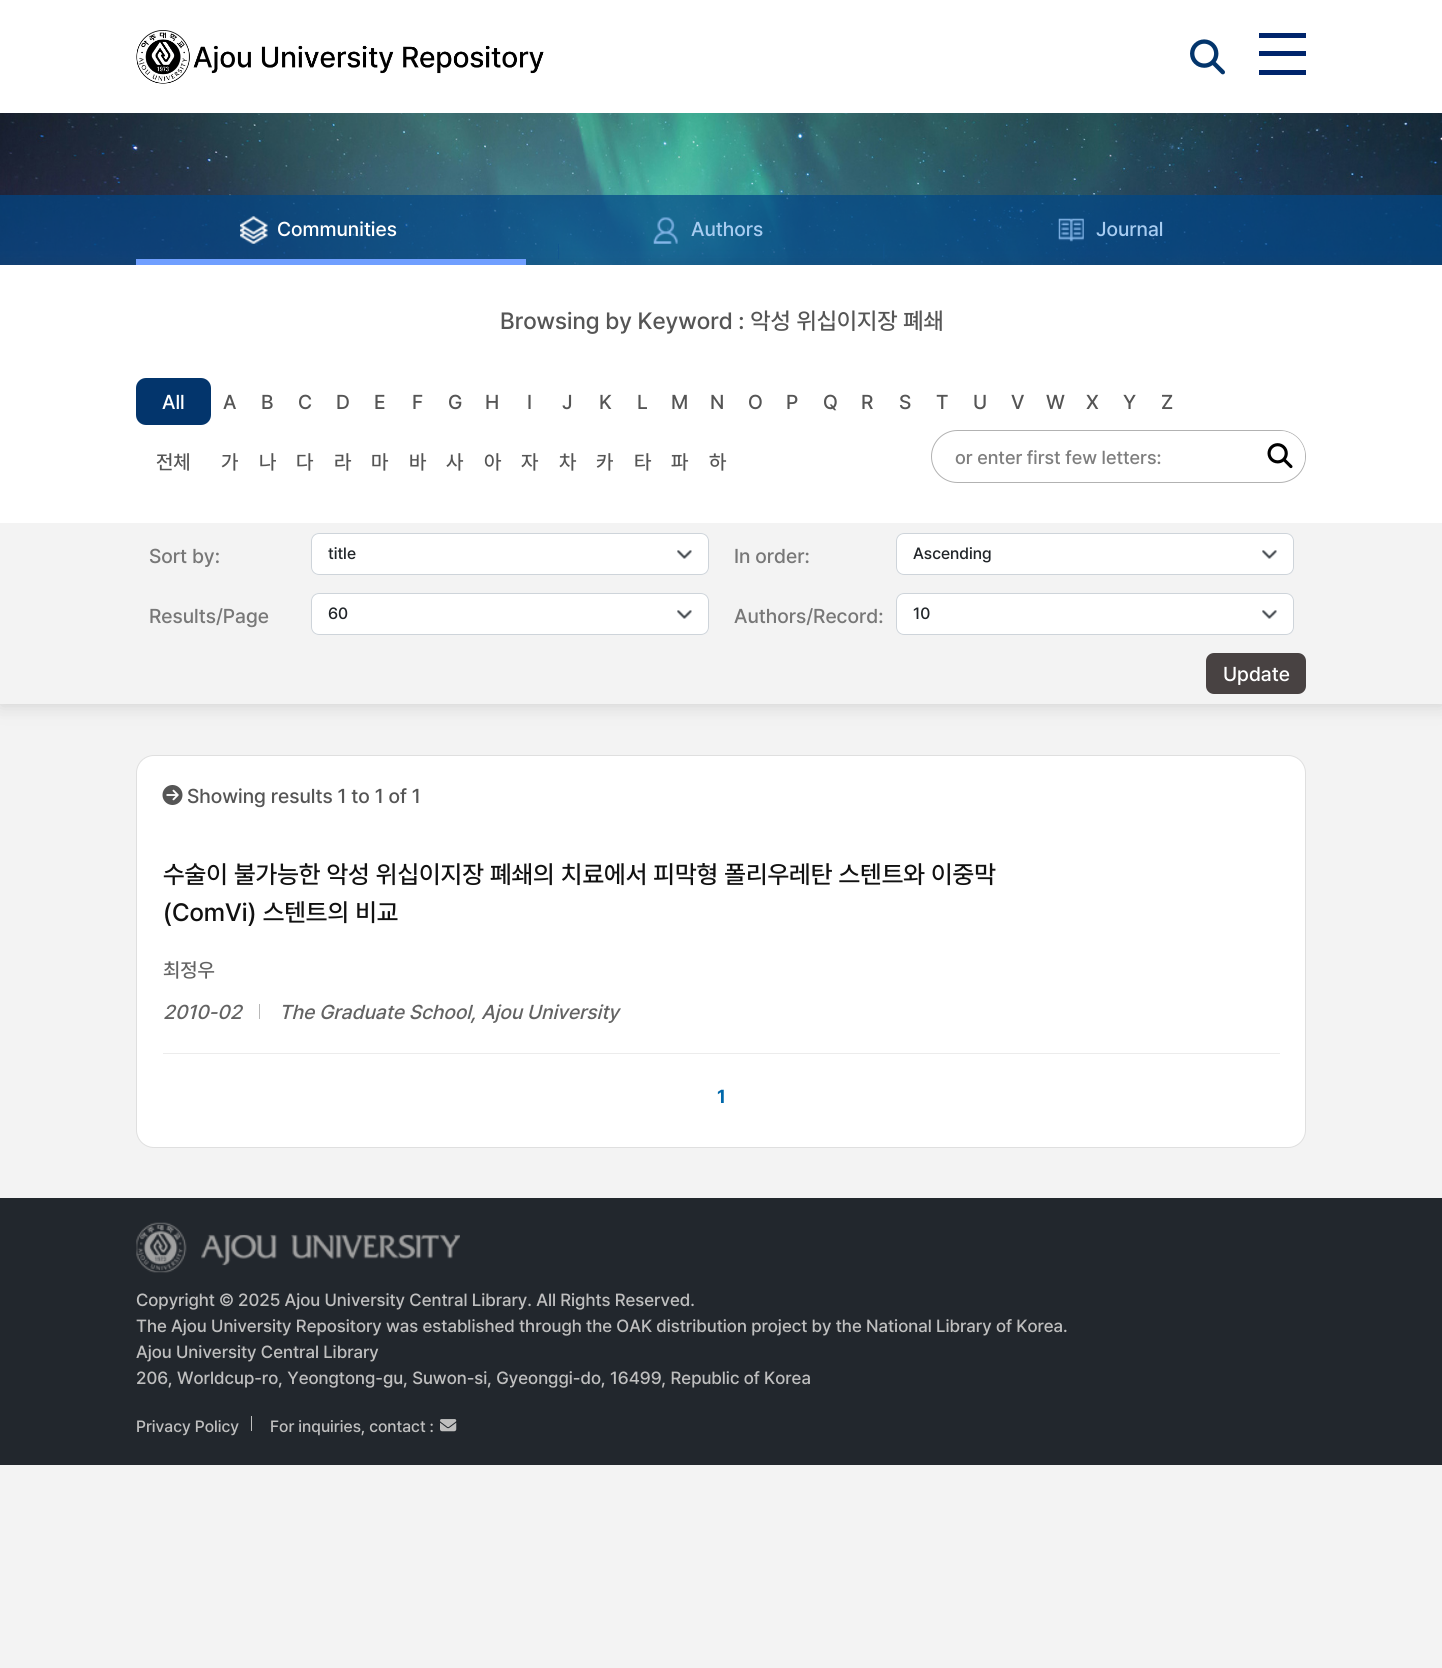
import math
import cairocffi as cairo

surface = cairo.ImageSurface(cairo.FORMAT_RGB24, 1442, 1668)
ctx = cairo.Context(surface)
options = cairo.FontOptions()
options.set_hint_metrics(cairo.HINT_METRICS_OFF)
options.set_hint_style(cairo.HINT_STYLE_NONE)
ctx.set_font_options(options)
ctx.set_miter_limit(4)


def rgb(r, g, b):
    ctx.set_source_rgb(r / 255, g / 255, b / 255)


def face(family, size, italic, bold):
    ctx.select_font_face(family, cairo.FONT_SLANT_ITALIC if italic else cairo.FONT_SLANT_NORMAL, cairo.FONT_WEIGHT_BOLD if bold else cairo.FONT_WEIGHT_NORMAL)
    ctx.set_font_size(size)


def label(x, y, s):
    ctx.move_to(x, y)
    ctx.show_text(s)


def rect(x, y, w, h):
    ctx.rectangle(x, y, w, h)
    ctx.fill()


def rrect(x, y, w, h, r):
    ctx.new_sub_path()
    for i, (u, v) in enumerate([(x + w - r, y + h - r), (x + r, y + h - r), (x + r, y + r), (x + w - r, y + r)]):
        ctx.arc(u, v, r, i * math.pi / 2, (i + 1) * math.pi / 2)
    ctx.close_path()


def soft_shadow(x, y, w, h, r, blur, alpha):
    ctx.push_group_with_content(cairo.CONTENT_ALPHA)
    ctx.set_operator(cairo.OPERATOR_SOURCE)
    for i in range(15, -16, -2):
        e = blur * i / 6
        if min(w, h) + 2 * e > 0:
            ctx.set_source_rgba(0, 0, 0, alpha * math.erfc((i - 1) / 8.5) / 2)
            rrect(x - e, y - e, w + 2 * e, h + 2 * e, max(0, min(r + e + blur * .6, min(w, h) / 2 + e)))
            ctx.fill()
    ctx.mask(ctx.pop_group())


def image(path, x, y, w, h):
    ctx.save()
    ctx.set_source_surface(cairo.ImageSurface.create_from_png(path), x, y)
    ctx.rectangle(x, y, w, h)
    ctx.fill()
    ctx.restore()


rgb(243, 243, 243)
ctx.paint()
rgb(255, 255, 255)
rect(0, 0, 1442, 113)
image('image0.png', 136, 30, 408, 54)
image('image1.png', 1190, 39, 35, 36)
rgb(0, 37, 108)
rect(1259, 33, 47, 5)
rect(1259, 51, 47, 5)
rect(1259, 70, 47, 5)
image('image2.png', 0, 113, 1442, 152)
ctx.set_source_rgba(0, 0.275, 0.525, 0.7)
rect(0, 195, 1442, 70)
rgb(72, 72, 72)
soft_shadow(0, 268, 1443, 438, 0, 9, 0.2)
image('image3.png', 240, 216, 28, 28)
face('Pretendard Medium', 20, 0, 0)
rgb(255, 255, 255)
label(277, 236, 'Communities')
rgb(112, 159, 255)
rect(136, 259, 390, 6)
image('image4.png', 653, 217, 25, 27)
rgb(167, 204, 241)
label(691, 236, 'Authors')
image('image5.png', 1058, 218, 26, 24)
label(1096, 236, 'Journal')
rgb(255, 255, 255)
rect(0, 265, 1442, 258)
face('Pretendard Medium', 23.4, 0, 0)
rgb(85, 85, 85)
label(500, 329, 'Browsing by Keyword : 악성 위십이지장 폐쇄')
rgb(3, 53, 108)
rrect(136, 378, 75, 47, 10)
ctx.fill()
face('Pretendard Medium', 20, 0, 0)
rgb(255, 255, 255)
label(162, 409, 'All')
rgb(85, 85, 85)
label(223, 409, 'A')
label(261, 409, 'B')
label(298, 409, 'C')
label(336, 409, 'D')
label(374, 409, 'E')
label(412, 409, 'F')
label(448, 409, 'G')
label(485, 409, 'H')
label(527, 409, 'I')
label(562, 409, 'J')
label(599, 409, 'K')
label(637, 409, 'L')
label(671, 409, 'M')
label(710, 409, 'N')
label(748, 409, 'O')
label(786, 409, 'P')
label(823, 409, 'Q')
label(861, 409, 'R')
label(899, 409, 'S')
label(936, 409, 'T')
label(973, 409, 'U')
label(1011, 409, 'V')
label(1046, 409, 'W')
label(1086, 409, 'X')
label(1123, 409, 'Y')
label(1161, 409, 'Z')
label(156, 469, '전체')
label(221, 469, '가')
label(259, 469, '나')
label(296, 469, '다')
label(334, 469, '라')
label(371, 469, '마')
label(409, 469, '바')
label(446, 469, '사')
label(484, 469, '아')
label(521, 469, '자')
label(559, 469, '차')
label(596, 469, '카')
label(634, 469, '타')
label(671, 469, '파')
label(709, 469, '하')
rrect(931.5, 430.5, 374, 52, 26)
rgb(178, 178, 178)
ctx.set_line_width(1)
ctx.stroke()
face('Pretendard Medium', 18.75, 0, 0)
rgb(126, 126, 126)
label(955, 464, 'or enter first few letters:')
rgb(255, 255, 255)
ctx.new_path()
ctx.arc(1280, 456, 25, 0, 2 * math.pi)
ctx.fill()
image('image6.png', 1267, 443, 26, 26)
rgb(243, 243, 243)
rect(0, 523, 1442, 181)
face('Pretendard Medium', 20, 0, 0)
rgb(119, 119, 119)
label(149, 563, 'Sort by:')
rgb(255, 255, 255)
rrect(311, 533, 398, 42, 8)
ctx.fill()
image('image7.png', 677, 550, 15, 9)
rrect(311.5, 533.5, 397, 41, 7.5)
rgb(206, 212, 218)
ctx.stroke()
face('Pretendard Medium', 16.25, 0, 0)
rgb(33, 37, 41)
label(328, 559, 'title')
face('Pretendard Medium', 20, 0, 0)
rgb(119, 119, 119)
label(734, 563, 'In order:')
rgb(255, 255, 255)
rrect(896, 533, 398, 42, 8)
ctx.fill()
image('image7.png', 1262, 550, 15, 9)
rrect(896.5, 533.5, 397, 41, 7.5)
rgb(206, 212, 218)
ctx.stroke()
face('Pretendard Medium', 16.25, 0, 0)
rgb(33, 37, 41)
label(913, 559, 'Ascending')
face('Pretendard Medium', 20, 0, 0)
rgb(119, 119, 119)
label(149, 623, 'Results/Page')
rgb(255, 255, 255)
rrect(311, 593, 398, 42, 8)
ctx.fill()
image('image7.png', 677, 610, 15, 9)
rrect(311.5, 593.5, 397, 41, 7.5)
rgb(206, 212, 218)
ctx.stroke()
face('Pretendard Medium', 16.25, 0, 0)
rgb(33, 37, 41)
label(328, 619, '60')
face('Pretendard Medium', 20, 0, 0)
rgb(119, 119, 119)
label(734, 623, 'Authors/Record:')
rgb(255, 255, 255)
rrect(896, 593, 398, 42, 8)
ctx.fill()
image('image7.png', 1262, 610, 15, 9)
rrect(896.5, 593.5, 397, 41, 7.5)
rgb(206, 212, 218)
ctx.stroke()
face('Pretendard Medium', 16.25, 0, 0)
rgb(33, 37, 41)
label(913, 619, '10')
rgb(72, 66, 66)
rrect(1206, 653, 100, 41, 8)
ctx.fill()
face('Pretendard Medium', 20, 0, 0)
rgb(255, 255, 255)
label(1223, 681, 'Update')
rrect(136.5, 755.5, 1169, 392, 17.5)
ctx.fill_preserve()
rgb(223, 223, 223)
ctx.stroke()
image('image8.png', 162, 785, 21, 20)
rgb(85, 85, 85)
label(187, 803, 'Showing results 1 to 1 of 1')
rgb(236, 236, 236)
rect(163, 1053, 1117, 1)
face('Pretendard Medium', 25, 0, 0)
rgb(17, 17, 17)
label(163, 883, '수술이 불가능한 악성 위십이지장 폐쇄의 치료에서 피막형 폴리우레탄 스텐트와 이중막')
label(163, 921, '(ComVi) 스텐트의 비교')
face('Pretendard Medium', 20, 0, 0)
rgb(99, 99, 99)
label(163, 977, '최정우')
face('Pretendard Medium', 20, 1, 0)
label(163, 1019, '2010-02')
rgb(184, 184, 184)
rect(259, 1004, 1, 15)
rgb(99, 99, 99)
label(279, 1019, 'The Graduate School, Ajou University')
face('Pretendard', 18.75, 0, 1)
rgb(0, 104, 170)
label(717, 1103, '1')
rgb(34, 39, 45)
rect(0, 1198, 1442, 267)
image('image9.png', 136, 1222, 324, 51)
face('Pretendard Medium', 17.5, 0, 0)
rgb(191, 191, 191)
label(136, 1306, 'Copyright © 2025 Ajou University Central Library. All Rights Reserved.')
label(136, 1332, 'The Ajou University Repository was established through the OAK distribution project by the National Library of Korea.')
label(136, 1358, 'Ajou University Central Library')
label(136, 1384, '206, Worldcup-ro, Yeongtong-gu, Suwon-si, Gyeonggi-do, 16499, Republic of Korea')
face('Pretendard Medium', 16.25, 0, 0)
label(136, 1432, 'Privacy Policy')
rect(251, 1416, 1, 15)
label(270, 1432, 'For inquiries, contact :')
image('image10.png', 440, 1419, 17, 13)
surface.write_to_png('render.png')
